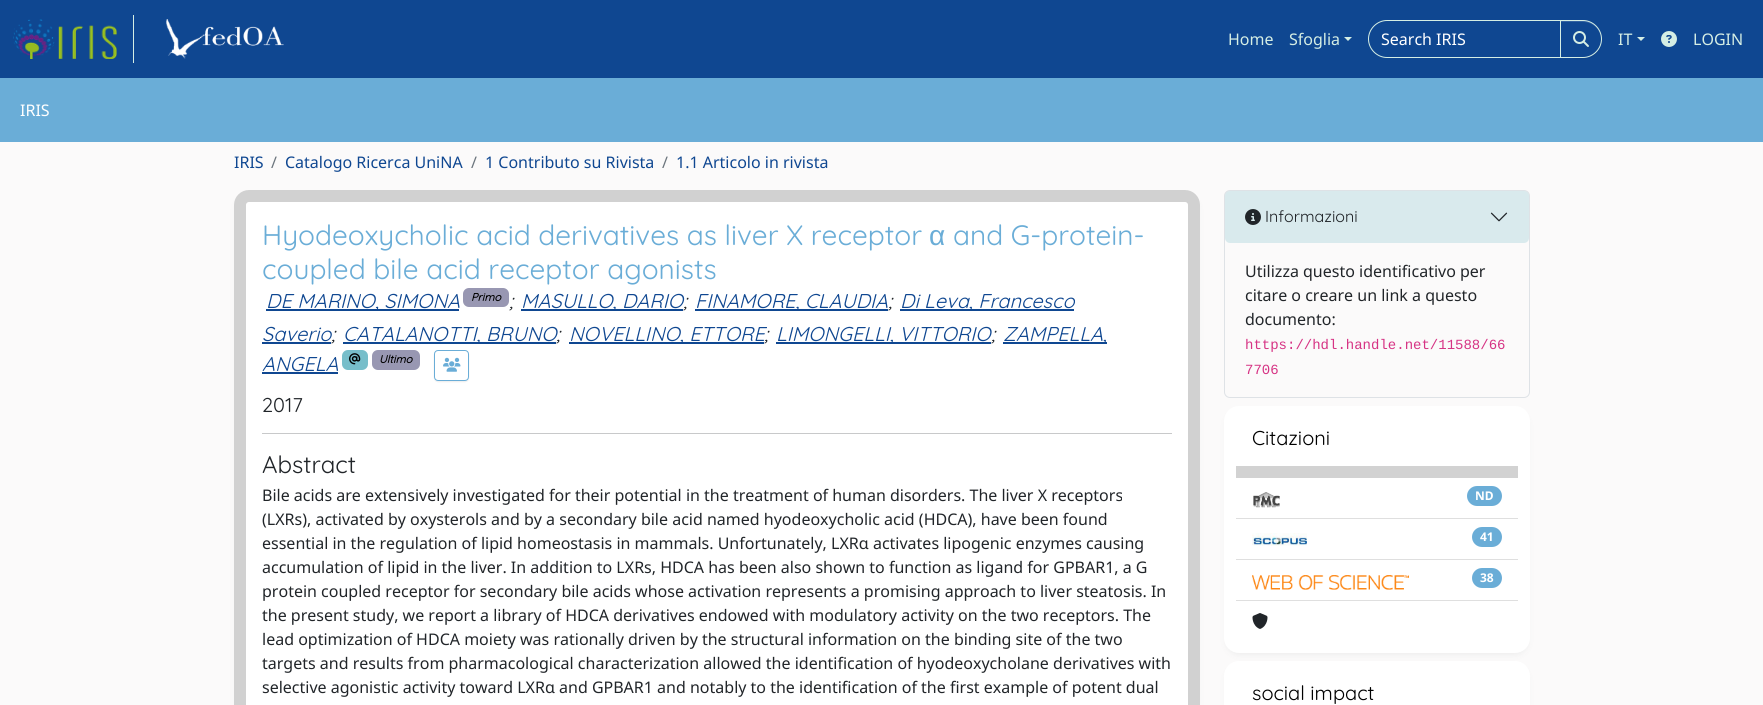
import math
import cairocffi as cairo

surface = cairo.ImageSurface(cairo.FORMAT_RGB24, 1763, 705)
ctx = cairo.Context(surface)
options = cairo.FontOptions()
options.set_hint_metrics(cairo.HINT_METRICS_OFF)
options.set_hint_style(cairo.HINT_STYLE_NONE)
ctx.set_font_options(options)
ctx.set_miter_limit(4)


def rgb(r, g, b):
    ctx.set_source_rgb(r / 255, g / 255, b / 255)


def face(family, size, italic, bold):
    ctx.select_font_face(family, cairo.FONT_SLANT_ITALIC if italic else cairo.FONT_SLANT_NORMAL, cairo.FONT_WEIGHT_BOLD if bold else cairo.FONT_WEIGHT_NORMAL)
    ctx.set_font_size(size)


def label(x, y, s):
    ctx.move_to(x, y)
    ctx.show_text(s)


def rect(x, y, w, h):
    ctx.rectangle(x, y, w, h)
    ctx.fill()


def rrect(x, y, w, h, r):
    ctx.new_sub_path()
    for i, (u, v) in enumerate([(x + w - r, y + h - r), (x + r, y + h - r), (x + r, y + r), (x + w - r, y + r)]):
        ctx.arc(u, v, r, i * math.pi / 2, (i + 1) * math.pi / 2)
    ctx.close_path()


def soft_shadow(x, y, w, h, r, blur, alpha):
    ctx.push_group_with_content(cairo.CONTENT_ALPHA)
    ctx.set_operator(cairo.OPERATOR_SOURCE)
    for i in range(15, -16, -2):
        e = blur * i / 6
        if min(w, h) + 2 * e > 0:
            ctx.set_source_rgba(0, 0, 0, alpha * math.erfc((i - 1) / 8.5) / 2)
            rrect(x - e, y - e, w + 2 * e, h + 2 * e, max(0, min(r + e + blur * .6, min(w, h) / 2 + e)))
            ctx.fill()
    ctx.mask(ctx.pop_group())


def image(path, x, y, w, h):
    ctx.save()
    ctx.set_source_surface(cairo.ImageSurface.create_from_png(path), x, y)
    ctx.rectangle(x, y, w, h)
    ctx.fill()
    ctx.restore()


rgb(251, 250, 250)
ctx.paint()
rgb(15, 71, 145)
rect(0, 0, 1763, 78)
rgb(213, 238, 228)
rect(133, 15, 1, 48)
image('image0.png', 13, 19, 104, 40)
image('image1.png', 166, 19, 118, 40)
face('Noto Sans', 16, 0, 0)
label(1228, 45, 'Home')
label(1289, 45, 'Sfoglia')
ctx.new_path()
ctx.move_to(1344, 37)
ctx.line_to(1352, 37)
ctx.line_to(1348, 41)
ctx.close_path()
ctx.fill()
ctx.new_path()
ctx.move_to(1387, 20.5)
ctx.line_to(1560.5, 20.5)
ctx.line_to(1560.5, 57.5)
ctx.line_to(1387, 57.5)
ctx.curve_to(1377, 57.5, 1368.5, 49, 1368.5, 39)
ctx.curve_to(1368.5, 29, 1377, 20.5, 1387, 20.5)
ctx.close_path()
ctx.set_line_width(1)
ctx.stroke()
rgb(255, 255, 255)
label(1381, 45, 'Search IRIS')
rgb(0, 0, 0)
soft_shadow(1560, 21, 42, 38, 19, 0.5, 0.07)
rgb(15, 71, 145)
ctx.new_path()
ctx.move_to(1560, 20)
ctx.line_to(1583, 20)
ctx.curve_to(1593.5, 20, 1602, 28.5, 1602, 39)
ctx.curve_to(1602, 49.5, 1593.5, 58, 1583, 58)
ctx.line_to(1560, 58)
ctx.close_path()
ctx.fill()
rgb(51, 99, 162)
ctx.new_path()
ctx.move_to(1561, 22)
ctx.line_to(1583, 22)
ctx.curve_to(1593, 22, 1601, 30, 1601, 39)
ctx.curve_to(1601, 31, 1595, 23, 1587, 21)
ctx.line_to(1561, 21)
ctx.close_path()
ctx.fill()
ctx.new_path()
ctx.move_to(1560.5, 20.5)
ctx.line_to(1583, 20.5)
ctx.curve_to(1593, 20.5, 1601.5, 29, 1601.5, 39)
ctx.curve_to(1601.5, 49, 1593, 57.5, 1583, 57.5)
ctx.line_to(1560.5, 57.5)
ctx.close_path()
rgb(213, 238, 228)
ctx.stroke()
image('image2.png', 1573, 31, 16, 16)
label(1618, 45, 'IT')
ctx.new_path()
ctx.move_to(1637, 37)
ctx.line_to(1645, 37)
ctx.line_to(1641, 41)
ctx.close_path()
ctx.fill()
image('image3.png', 1661, 31, 16, 16)
label(1693, 45, 'LOGIN')
rgb(106, 173, 215)
rect(0, 78, 1763, 64)
rgb(255, 255, 255)
label(20, 116, 'IRIS')
rgb(15, 71, 145)
label(234, 168, 'IRIS')
rgb(108, 117, 125)
label(271, 168, '/')
rgb(15, 71, 145)
label(285, 168, 'Catalogo Ricerca UniNA')
rgb(108, 117, 125)
label(471, 168, '/')
rgb(15, 71, 145)
label(485, 168, '1 Contributo su Rivista')
rgb(108, 117, 125)
label(662, 168, '/')
rgb(15, 71, 145)
label(676, 168, '1.1 Articolo in rivista')
rgb(238, 238, 238)
soft_shadow(236, 196, 962, 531, 13, 3, 1)
rgb(255, 255, 255)
rrect(234, 190, 966, 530, 15)
ctx.fill()
rrect(240, 196, 954, 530, 9)
ctx.set_source_rgba(0, 0, 0, 0.18)
ctx.set_line_width(12)
ctx.stroke()
face('Quicksand', 28, 0, 0)
rgb(106, 173, 215)
label(262, 245, 'Hyodeoxycholic acid derivatives as liver X receptor')
face('Liberation Sans', 28, 0, 0)
label(929, 245, 'α')
face('Quicksand', 28, 0, 0)
label(953, 245, 'and G-protein-')
label(262, 279, 'coupled bile acid receptor agonists')
rgb(15, 71, 145)
rect(266, 309, 193, 2)
face('Quicksand', 20, 1, 0)
label(266, 308, 'DE MARINO, SIMONA')
rgb(152, 151, 178)
rrect(463, 288, 46, 19, 6)
ctx.fill()
face('Quicksand', 11, 1, 1)
rgb(0, 0, 0)
label(471, 301, 'Primo')
face('Quicksand', 20, 1, 0)
rgb(33, 37, 41)
label(509, 308, ';')
rgb(15, 71, 145)
rect(521, 309, 162, 2)
label(521, 308, 'MASULLO, DARIO')
rgb(33, 37, 41)
label(683, 308, ';')
rgb(15, 71, 145)
rect(695, 309, 193, 2)
label(695, 308, 'FINAMORE, CLAUDIA')
rgb(33, 37, 41)
label(888, 308, ';')
rgb(15, 71, 145)
rect(900, 309, 174, 2)
label(900, 308, 'Di Leva, Francesco')
label(262, 341, 'Saverio')
rect(1003, 342, 104, 2)
label(1003, 341, 'ZAMPELLA,')
label(262, 371, 'ANGELA')
rect(262, 372, 76, 2)
rgb(119, 190, 202)
rrect(342, 350, 26, 20, 6)
ctx.fill()
image('image4.png', 349, 353, 12, 12)
rgb(152, 151, 178)
rrect(372, 350, 48, 20, 6)
ctx.fill()
face('Quicksand', 11, 1, 1)
rgb(0, 0, 0)
label(379, 363, 'Ultimo')
face('Quicksand', 20, 1, 0)
rgb(33, 37, 41)
label(331, 341, ';')
rgb(15, 71, 145)
rect(262, 342, 69, 2)
rect(343, 342, 213, 2)
label(343, 341, 'CATALANOTTI, BRUNO')
rgb(33, 37, 41)
label(556, 341, ';')
rgb(15, 71, 145)
rect(569, 342, 195, 2)
label(569, 341, 'NOVELLINO, ETTORE')
rect(776, 342, 215, 2)
label(776, 341, 'LIMONGELLI, VITTORIO')
rgb(33, 37, 41)
label(764, 341, ';')
label(991, 341, ';')
ctx.save()
ctx.set_fill_rule(cairo.FILL_RULE_EVEN_ODD)
ctx.new_path()
ctx.move_to(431, 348)
ctx.line_to(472, 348)
ctx.line_to(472, 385)
ctx.line_to(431, 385)
ctx.close_path()
ctx.move_to(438, 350)
ctx.line_to(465, 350)
ctx.curve_to(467, 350, 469, 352, 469, 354)
ctx.line_to(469, 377)
ctx.curve_to(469, 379, 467, 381, 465, 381)
ctx.line_to(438, 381)
ctx.curve_to(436, 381, 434, 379, 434, 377)
ctx.line_to(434, 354)
ctx.curve_to(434, 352, 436, 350, 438, 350)
ctx.close_path()
ctx.clip()
rgb(0, 0, 0)
soft_shadow(434, 351, 35, 31, 4, 0.5, 0.07)
ctx.restore()
rrect(434.5, 350.5, 34, 30, 3.5)
rgb(106, 173, 215)
ctx.set_line_width(1)
ctx.stroke()
image('image5.png', 443, 357, 18, 15)
face('Quicksand', 20, 0, 0)
rgb(33, 37, 41)
label(262, 412, '2017')
rgb(200, 201, 202)
rect(262, 433, 910, 1)
face('Quicksand', 24, 0, 0)
rgb(33, 37, 41)
label(262, 473, 'Abstract')
face('Noto Sans', 16, 0, 0)
label(262, 501, 'Bile acids are extensively investigated for their potential in the treatment of human disorders. The liver X receptors')
label(262, 525, '(LXRs), activated by oxysterols and by a secondary bile acid named hyodeoxycholic acid (HDCA), have been found')
label(262, 549, 'essential in the regulation of lipid homeostasis in mammals. Unfortunately, LXRα activates lipogenic enzymes causing')
label(262, 573, 'accumulation of lipid in the liver. In addition to LXRs, HDCA has been also shown to function as ligand for GPBAR1, a G')
label(262, 597, 'protein coupled receptor for secondary bile acids whose activation represents a promising approach to liver steatosis. In')
label(262, 621, 'the present study, we report a library of HDCA derivatives endowed with modulatory activity on the two receptors. The')
label(262, 645, 'lead optimization of HDCA moiety was rationally driven by the structural information on the binding site of the two')
label(262, 669, 'targets and results from pharmacological characterization allowed the identification of hyodeoxycholane derivatives with')
label(262, 693, 'selective agonistic activity toward LXRα and GPBAR1 and notably to the identification of the first example of potent dual')
rrect(1224.5, 190.5, 305, 207, 5.5)
rgb(222, 226, 230)
ctx.stroke()
ctx.set_source_rgba(0.467, 0.745, 0.792, 0.25)
rrect(1225, 191, 304, 52, 5)
ctx.fill()
image('image6.png', 1245, 209, 16, 16)
face('Quicksand', 16, 0, 0)
rgb(33, 37, 41)
label(1265, 222, 'Informazioni')
image('image7.png', 1490, 212, 18, 10)
face('Noto Sans', 16, 0, 0)
label(1245, 277, 'Utilizza questo identificativo per')
label(1245, 301, 'citare o creare un link a questo')
label(1245, 325, 'documento:')
face('Liberation Mono', 14, 0, 0)
rgb(214, 51, 132)
label(1245, 349, 'https://hdl.handle.net/11588/66')
label(1245, 374, '7706')
rgb(238, 238, 238)
soft_shadow(1226, 412, 302, 243, 13, 3, 1)
rgb(255, 255, 255)
rrect(1230, 412, 294, 235, 9)
ctx.fill_preserve()
ctx.set_line_width(12)
ctx.stroke()
rgb(210, 210, 210)
rect(1236, 466, 282, 12)
face('Quicksand', 20, 0, 0)
rgb(0, 0, 0)
label(1252, 445, 'Citazioni')
rgb(223, 223, 223)
rect(1236, 518, 282, 1)
image('image8.png', 1253, 492, 27, 16)
rgb(106, 173, 215)
rrect(1467, 486, 35, 20, 10)
ctx.fill()
face('Noto Sans', 12, 0, 1)
rgb(255, 255, 255)
label(1475, 500, 'ND')
rgb(223, 223, 223)
rect(1236, 559, 282, 1)
image('image9.png', 1252, 533, 55, 13)
rgb(106, 173, 215)
rrect(1472, 527, 30, 20, 10)
ctx.fill()
rgb(255, 255, 255)
label(1480, 541, '41')
rgb(223, 223, 223)
rect(1236, 600, 282, 1)
image('image10.png', 1252, 575, 157, 15)
rgb(106, 173, 215)
rrect(1472, 568, 30, 20, 10)
ctx.fill()
rgb(255, 255, 255)
label(1480, 582, '38')
image('image11.png', 1252, 613, 16, 16)
rgb(238, 238, 238)
soft_shadow(1226, 667, 302, 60, 13, 3, 1)
rgb(255, 255, 255)
rrect(1224, 661, 306, 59, 15)
ctx.fill()
face('Quicksand', 20, 0, 0)
rgb(0, 0, 0)
label(1252, 700, 'social impact')
surface.write_to_png('render.png')
